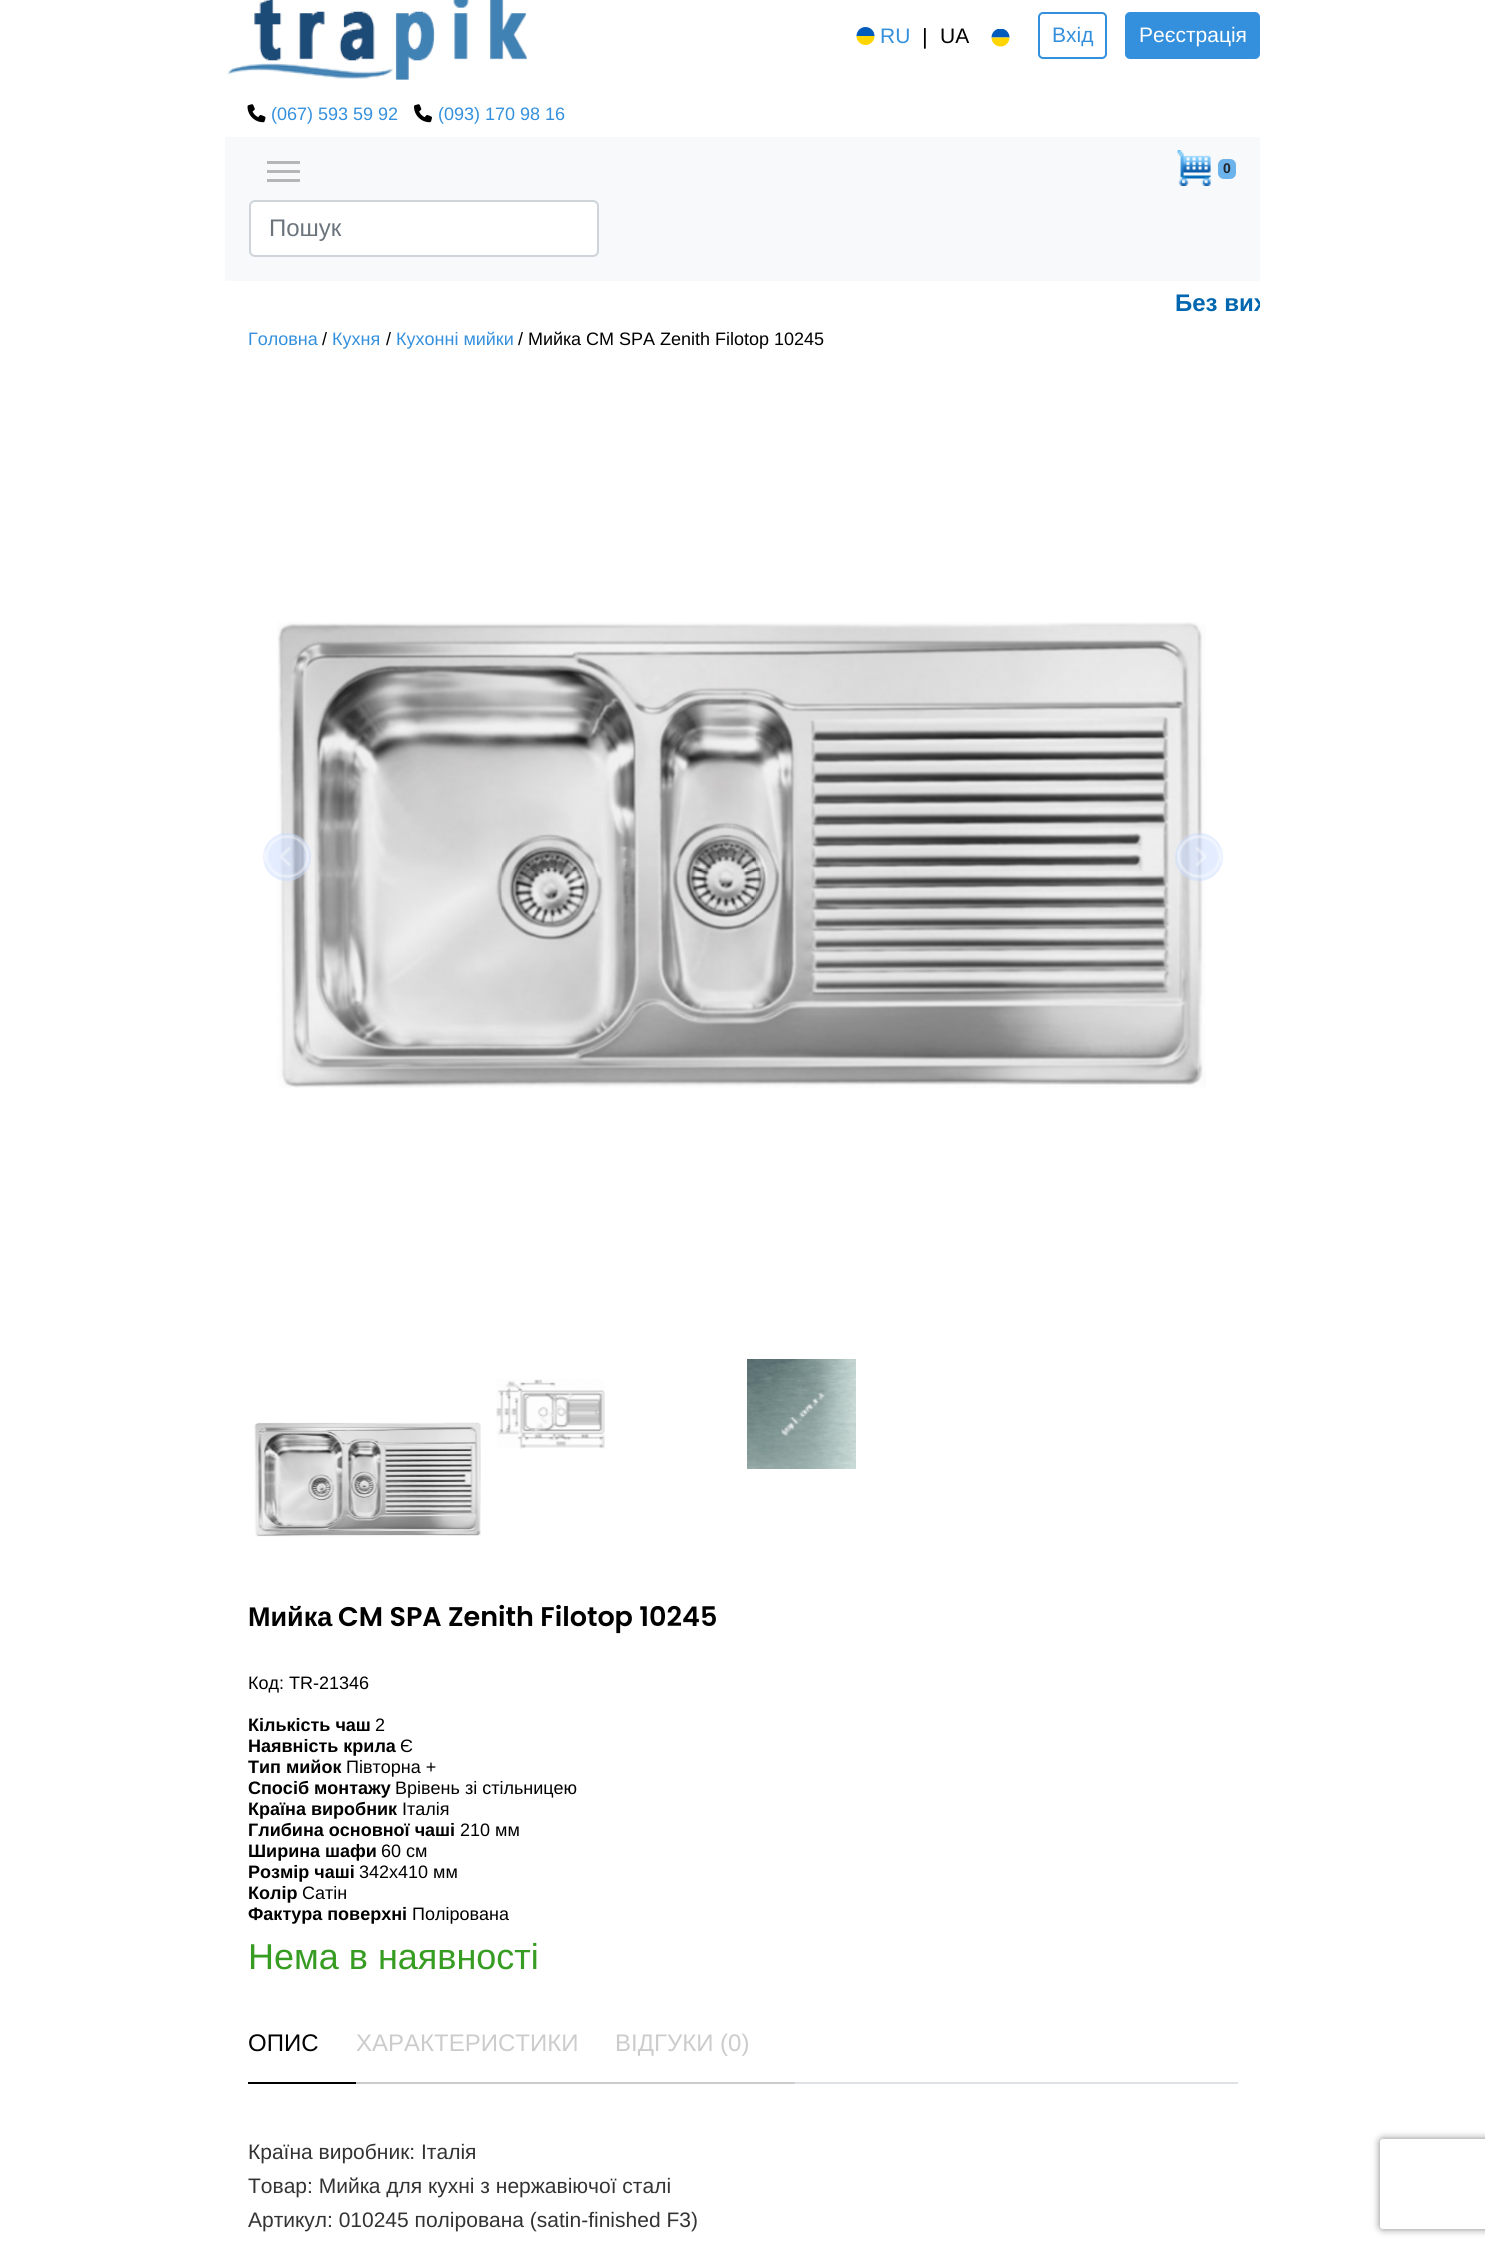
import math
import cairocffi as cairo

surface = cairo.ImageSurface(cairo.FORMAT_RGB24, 1485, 2250)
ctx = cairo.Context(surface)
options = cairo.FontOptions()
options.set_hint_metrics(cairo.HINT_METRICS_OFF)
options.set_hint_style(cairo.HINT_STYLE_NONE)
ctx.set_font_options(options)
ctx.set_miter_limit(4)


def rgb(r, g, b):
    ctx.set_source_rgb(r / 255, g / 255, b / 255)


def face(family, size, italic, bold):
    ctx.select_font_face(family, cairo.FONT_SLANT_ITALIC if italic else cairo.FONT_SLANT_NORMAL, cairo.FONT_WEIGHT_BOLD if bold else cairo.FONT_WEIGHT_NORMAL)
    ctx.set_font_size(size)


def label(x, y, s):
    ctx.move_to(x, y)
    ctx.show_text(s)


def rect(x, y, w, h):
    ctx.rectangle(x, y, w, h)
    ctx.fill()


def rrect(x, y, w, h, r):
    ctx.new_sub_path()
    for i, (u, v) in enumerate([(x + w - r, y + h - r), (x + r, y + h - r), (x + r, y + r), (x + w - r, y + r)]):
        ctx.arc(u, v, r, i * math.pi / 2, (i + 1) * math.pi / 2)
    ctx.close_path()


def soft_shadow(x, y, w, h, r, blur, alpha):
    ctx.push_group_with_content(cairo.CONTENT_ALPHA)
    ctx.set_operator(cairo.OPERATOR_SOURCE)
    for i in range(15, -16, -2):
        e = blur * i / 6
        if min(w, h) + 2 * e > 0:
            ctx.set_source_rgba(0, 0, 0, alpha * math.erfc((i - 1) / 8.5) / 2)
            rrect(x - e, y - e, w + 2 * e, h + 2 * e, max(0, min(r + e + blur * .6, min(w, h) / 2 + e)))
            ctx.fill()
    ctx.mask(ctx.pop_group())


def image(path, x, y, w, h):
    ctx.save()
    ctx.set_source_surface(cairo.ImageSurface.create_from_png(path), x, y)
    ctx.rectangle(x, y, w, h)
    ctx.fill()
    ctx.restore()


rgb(255, 255, 255)
ctx.paint()
image('image0.png', 227, 0, 300, 80)
image('image1.png', 856, 27, 19, 18)
face('Liberation Sans', 21, 0, 0)
rgb(52, 144, 220)
label(880, 43, 'RU')
face('Liberation Sans', 22, 0, 0)
rgb(0, 0, 0)
label(922, 44, '|')
face('Liberation Sans', 21, 0, 0)
label(940, 43, 'UA')
image('image2.png', 991, 29, 19, 18)
rrect(1039, 13, 67, 45, 4)
rgb(52, 144, 220)
ctx.stroke()
label(1052, 42, 'Вхід')
rrect(1126, 13, 133, 45, 4)
ctx.fill_preserve()
ctx.stroke()
rgb(255, 255, 255)
label(1139, 42, 'Реєстрація')
image('image3.png', 247, 104, 19, 19)
face('Liberation Sans', 18, 0, 0)
rgb(52, 144, 220)
label(271, 120, '(067) 593 59 92')
image('image4.png', 414, 104, 18, 19)
label(438, 120, '(093) 170 98 16')
rgb(248, 249, 250)
rect(225, 137, 1035, 144)
rgb(182, 182, 182)
rect(267, 161, 33, 3)
rect(267, 170, 33, 3)
rect(267, 179, 33, 3)
image('image5.png', 1177, 150, 34, 36)
rgb(108, 178, 235)
rrect(1218, 159, 18, 20, 6)
ctx.fill()
face('Liberation Sans', 14, 0, 1)
rgb(33, 37, 41)
label(1223, 173, '0')
rgb(255, 255, 255)
rrect(250, 201, 348, 55, 5)
ctx.fill_preserve()
rgb(206, 212, 218)
ctx.stroke()
face('Liberation Sans', 24, 0, 0)
rgb(108, 117, 125)
label(269, 236, 'Пошук')
ctx.save()
ctx.rectangle(225, 293, 1035, 48)
ctx.clip()
face('Liberation Sans', 24, 0, 1)
rgb(0, 102, 176)
label(1175, 311, 'Без вих')
ctx.restore()
face('Liberation Sans', 18, 0, 0)
rgb(52, 144, 220)
label(248, 345, 'Головна')
rgb(0, 0, 0)
label(322, 345, '/')
rgb(52, 144, 220)
label(332, 345, 'Кухня')
rgb(0, 0, 0)
label(386, 345, '/')
rgb(52, 144, 220)
label(396, 345, 'Кухонні мийки')
rgb(0, 0, 0)
label(518, 345, '/ Мийка CM SPA Zenith Filotop 10245')
image('image6.png', 277, 622, 929, 466)
ctx.set_source_rgba(0.792, 0.867, 1, 0.5)
ctx.arc(287, 857, 24, 0, 2 * math.pi)
ctx.fill()
image('image7.png', 263, 835, 46, 43)
ctx.arc(1199, 857, 24, 0, 2 * math.pi)
ctx.fill()
image('image8.png', 1177, 835, 45, 43)
image('image9.png', 496, 1379, 109, 70)
image('image10.png', 747, 1359, 109, 110)
image('image11.png', 254, 1422, 227, 115)
face('Liberation Sans', 27, 0, 1)
rgb(0, 0, 0)
label(248, 1626, 'Мийка')
face('Poppins SemiBold', 27, 0, 0)
label(338, 1626, 'CM SPA Zenith Filotop 10245')
face('Liberation Sans', 18, 0, 0)
label(248, 1689, 'Код: TR-21346')
face('Liberation Sans', 18, 0, 1)
label(248, 1731, 'Кількість чаш')
face('Liberation Sans', 18, 0, 0)
label(375, 1731, '2')
face('Liberation Sans', 18, 0, 1)
label(248, 1752, 'Наявність крила')
face('Liberation Sans', 18, 0, 0)
label(400, 1752, 'Є')
face('Liberation Sans', 18, 0, 1)
label(248, 1773, 'Тип мийок')
face('Liberation Sans', 18, 0, 0)
label(346, 1773, 'Півторна +')
face('Liberation Sans', 18, 0, 1)
label(248, 1794, 'Спосіб монтажу')
face('Liberation Sans', 18, 0, 0)
label(395, 1794, 'Врівень зі стільницею')
face('Liberation Sans', 18, 0, 1)
label(248, 1815, 'Країна виробник')
face('Liberation Sans', 18, 0, 0)
label(402, 1815, 'Італія')
face('Liberation Sans', 18, 0, 1)
label(248, 1836, 'Глибина основної чаші')
face('Liberation Sans', 18, 0, 0)
label(460, 1836, '210 мм')
face('Liberation Sans', 18, 0, 1)
label(248, 1857, 'Ширина шафи')
face('Liberation Sans', 18, 0, 0)
label(381, 1857, '60 см')
face('Liberation Sans', 18, 0, 1)
label(248, 1878, 'Розмір чаші')
face('Liberation Sans', 18, 0, 0)
label(359, 1878, '342x410 мм')
face('Liberation Sans', 18, 0, 1)
label(248, 1899, 'Колір')
face('Liberation Sans', 18, 0, 0)
label(302, 1899, 'Сатін')
face('Liberation Sans', 18, 0, 1)
label(248, 1920, 'Фактура поверхні')
face('Liberation Sans', 18, 0, 0)
label(412, 1920, 'Полірована')
face('Liberation Sans', 36, 0, 0)
rgb(55, 156, 34)
label(248, 1969, 'Нема в наявності')
rgb(222, 226, 230)
rect(795, 2082, 443, 2)
rgb(0, 0, 0)
rect(248, 2082, 108, 2)
face('Liberation Sans', 24, 0, 0)
label(248, 2051, 'ОПИС')
rgb(204, 204, 204)
rect(356, 2082, 439, 2)
label(356, 2051, 'ХАРАКТЕРИСТИКИ')
label(615, 2051, 'ВІДГУКИ (0)')
face('Liberation Sans', 21, 0, 0)
rgb(51, 51, 51)
label(248, 2159, 'Країна виробник: Італія')
label(248, 2193, 'Товар: Мийка для кухні з нержавіючої сталі')
label(248, 2227, 'Артикул: 010245 полірована (satin-finished F3)')
ctx.save()
ctx.set_fill_rule(cairo.FILL_RULE_EVEN_ODD)
ctx.new_path()
ctx.move_to(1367, 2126)
ctx.line_to(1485, 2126)
ctx.line_to(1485, 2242)
ctx.line_to(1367, 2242)
ctx.close_path()
ctx.move_to(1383, 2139)
ctx.line_to(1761, 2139)
ctx.curve_to(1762.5, 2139, 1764, 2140.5, 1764, 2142)
ctx.line_to(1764, 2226)
ctx.curve_to(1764, 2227.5, 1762.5, 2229, 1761, 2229)
ctx.line_to(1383, 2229)
ctx.curve_to(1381.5, 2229, 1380, 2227.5, 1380, 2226)
ctx.line_to(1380, 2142)
ctx.curve_to(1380, 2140.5, 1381.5, 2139, 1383, 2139)
ctx.close_path()
ctx.clip()
rgb(128, 128, 128)
soft_shadow(1380, 2139, 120, 90, 3, 4, 1)
ctx.restore()
surface.write_to_png('render.png')
